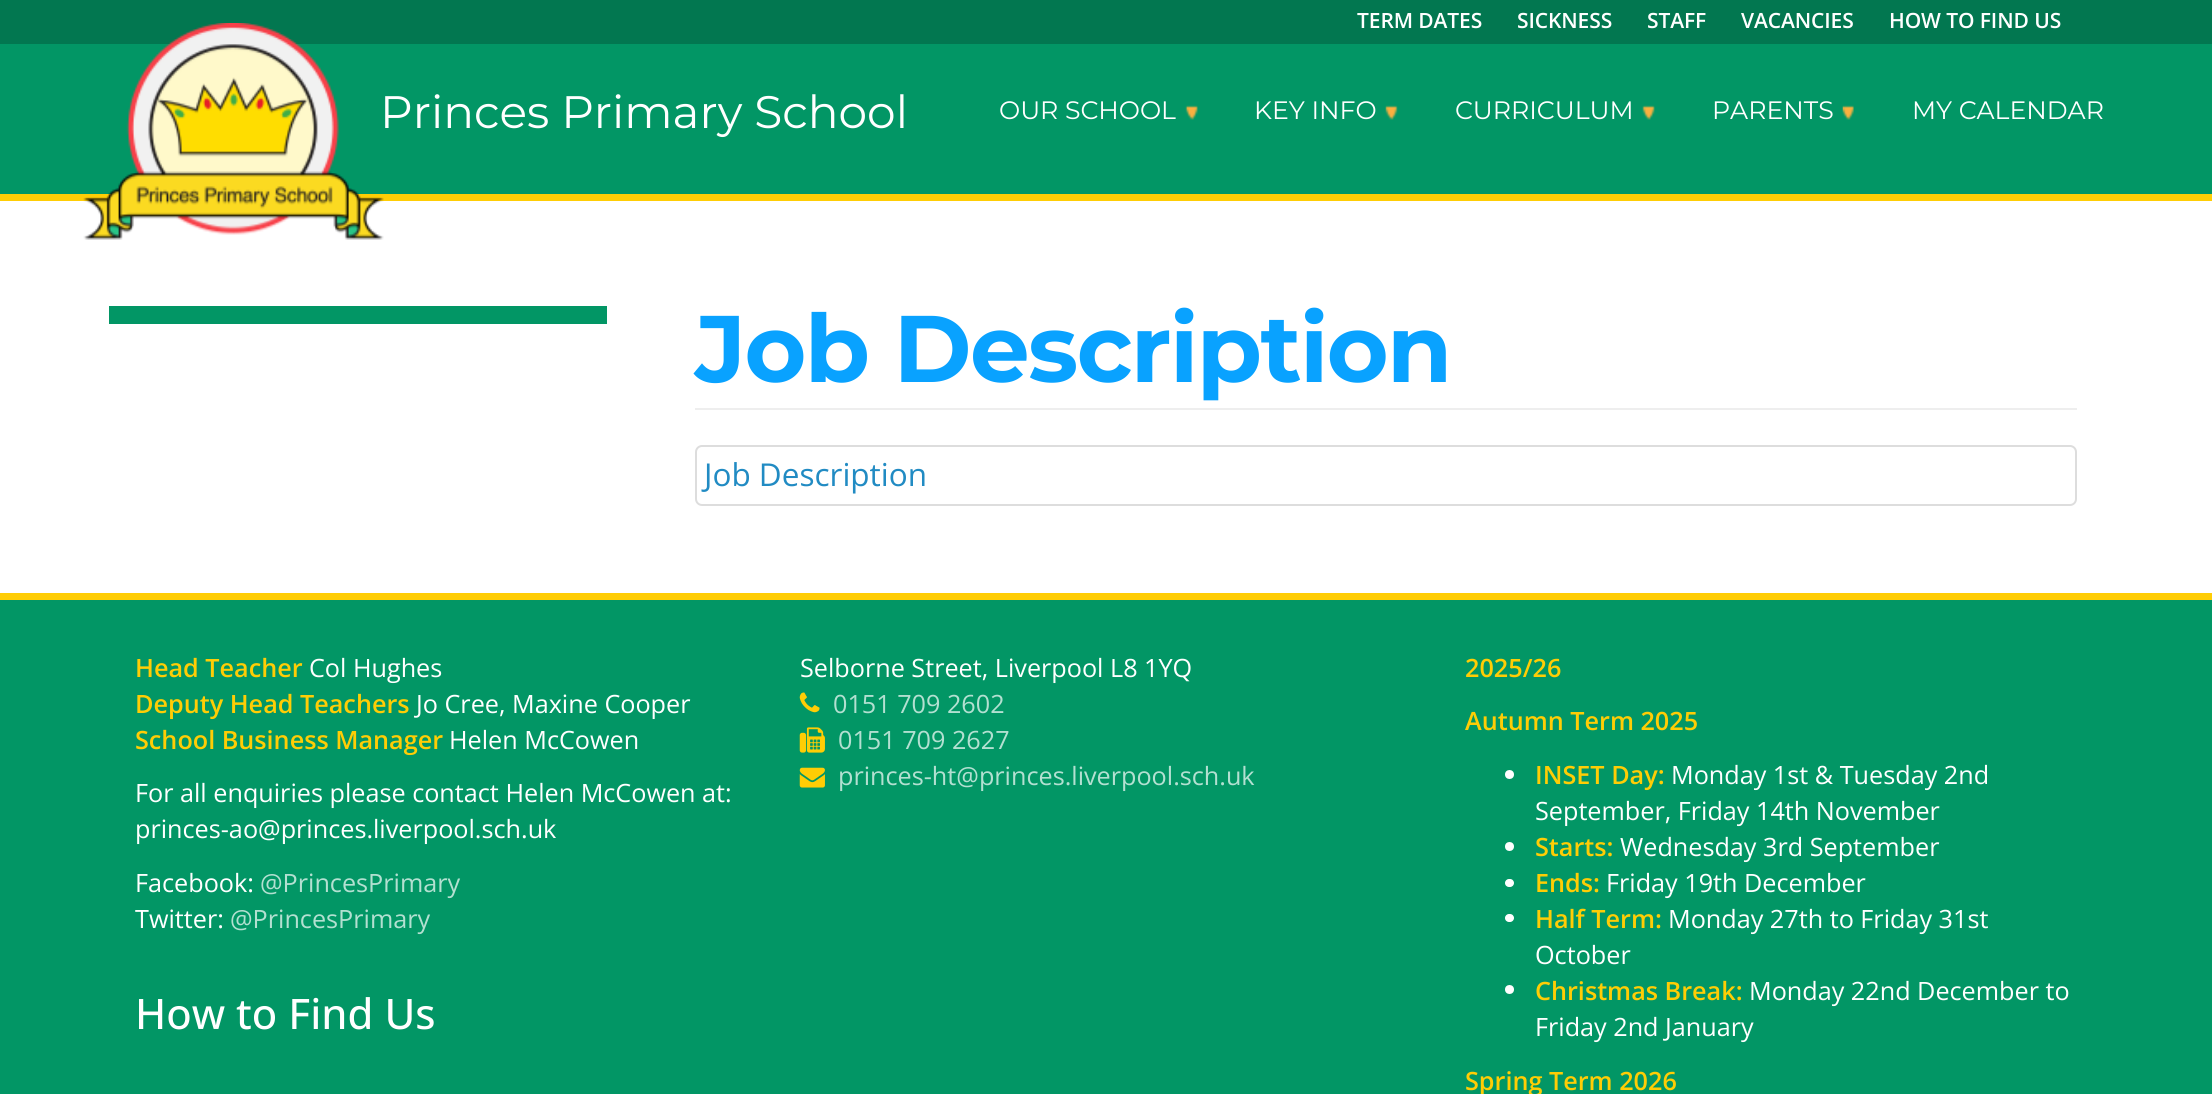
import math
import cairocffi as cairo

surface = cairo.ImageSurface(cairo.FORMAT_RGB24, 2212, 1094)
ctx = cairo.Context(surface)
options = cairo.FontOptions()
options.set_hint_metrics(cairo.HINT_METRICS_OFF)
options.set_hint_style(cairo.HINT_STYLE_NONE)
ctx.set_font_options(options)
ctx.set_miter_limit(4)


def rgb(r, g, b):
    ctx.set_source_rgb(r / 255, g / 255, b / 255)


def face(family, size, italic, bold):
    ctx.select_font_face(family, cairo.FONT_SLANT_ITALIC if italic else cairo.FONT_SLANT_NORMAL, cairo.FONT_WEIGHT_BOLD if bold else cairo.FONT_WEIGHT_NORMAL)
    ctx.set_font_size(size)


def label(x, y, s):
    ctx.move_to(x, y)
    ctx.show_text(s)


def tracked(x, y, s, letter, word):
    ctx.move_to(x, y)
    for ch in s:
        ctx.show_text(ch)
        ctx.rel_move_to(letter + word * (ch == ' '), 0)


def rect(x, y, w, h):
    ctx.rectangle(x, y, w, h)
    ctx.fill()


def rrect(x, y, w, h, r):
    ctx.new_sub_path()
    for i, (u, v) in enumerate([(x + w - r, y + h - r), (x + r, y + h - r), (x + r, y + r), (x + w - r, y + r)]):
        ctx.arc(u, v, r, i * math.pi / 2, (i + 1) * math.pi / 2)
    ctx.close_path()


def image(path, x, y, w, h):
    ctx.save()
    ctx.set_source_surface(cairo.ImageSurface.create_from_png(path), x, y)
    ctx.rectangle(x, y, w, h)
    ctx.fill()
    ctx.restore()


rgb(255, 255, 255)
ctx.paint()
rgb(2, 150, 101)
rect(0, 44, 2212, 150)
rgb(255, 205, 5)
rect(0, 194, 2212, 7)
rgb(2, 119, 80)
rect(0, 0, 2212, 44)
face('Open Sans SemiBold', 21, 0, 0)
rgb(255, 255, 255)
tracked(1357, 28, 'TERM DATES', -0.1, 0)
tracked(1517, 28, 'SICKNESS', -0.1, 0)
tracked(1647, 28, 'STAFF', -0.1, 0)
tracked(1741, 28, 'VACANCIES', -0.1, 0)
tracked(1889, 28, 'HOW TO FIND US', -0.1, 0)
image('image0.png', 83, 23, 301, 217)
face('Montserrat', 45.5, 0, 0)
label(380, 128, 'Princes Primary School')
face('Montserrat', 25.2, 0, 0)
label(999, 119, 'OUR SCHOOL')
image('image1.png', 1185, 105, 13, 15)
label(1254, 119, 'KEY INFO')
image('image2.png', 1385, 105, 13, 15)
label(1455, 119, 'CURRICULUM')
image('image3.png', 1642, 105, 13, 15)
label(1712, 119, 'PARENTS')
image('image4.png', 1842, 105, 12, 15)
label(1912, 119, 'MY CALENDAR')
rgb(2, 150, 101)
rect(109, 306, 498, 18)
rgb(238, 238, 238)
rect(695, 408, 1382, 2)
face('Montserrat', 94.5, 0, 1)
rgb(9, 162, 255)
tracked(695, 382, 'Job Description', -1.6, 0)
rrect(696, 446, 1380, 59, 6)
rgb(221, 221, 221)
ctx.stroke()
face('Open Sans', 31.5, 0, 0)
rgb(33, 139, 195)
label(704, 486, 'Job Description')
rgb(2, 150, 101)
rect(0, 600, 2212, 494)
rgb(255, 205, 5)
rect(0, 593, 2212, 7)
face('Open Sans SemiBold', 25.2, 0, 0)
label(135, 677, 'Head Teacher')
face('Open Sans', 25.2, 0, 0)
rgb(255, 255, 255)
label(309, 677, 'Col Hughes')
face('Open Sans SemiBold', 25.2, 0, 0)
rgb(255, 205, 5)
label(135, 713, 'Deputy Head Teachers')
face('Open Sans', 25.2, 0, 0)
rgb(255, 255, 255)
label(416, 713, 'Jo Cree, Maxine Cooper')
face('Open Sans SemiBold', 25.2, 0, 0)
rgb(255, 205, 5)
label(135, 749, 'School Business Manager')
face('Open Sans', 25.2, 0, 0)
rgb(255, 255, 255)
label(449, 749, 'Helen McCowen')
label(135, 802, 'For all enquiries please contact Helen McCowen at:')
label(135, 838, 'princes-ao@princes.liverpool.sch.uk')
label(135, 892, 'Facebook:')
rgb(179, 224, 209)
label(260, 892, '@PrincesPrimary')
rgb(255, 255, 255)
label(135, 928, 'Twitter:')
rgb(179, 224, 209)
label(230, 928, '@PrincesPrimary')
rgb(255, 255, 255)
label(800, 677, 'Selborne Street, Liverpool L8 1YQ')
image('image5.png', 799, 692, 21, 21)
rgb(179, 224, 209)
label(833, 713, '0151 709 2602')
image('image6.png', 799, 727, 26, 26)
label(838, 749, '0151 709 2627')
image('image7.png', 799, 767, 26, 21)
label(838, 785, 'princes-ht@princes.liverpool.sch.uk')
face('Open Sans Medium', 42, 0, 0)
rgb(255, 255, 255)
label(135, 1029, 'How to Find Us')
face('Open Sans SemiBold', 25.2, 0, 0)
rgb(255, 205, 5)
label(1465, 677, '2025/26')
label(1465, 730, 'Autumn Term 2025')
rgb(255, 255, 255)
ctx.new_path()
ctx.arc(1509.5, 774.5, 4.5, 0, 2 * math.pi)
ctx.fill()
rgb(255, 205, 5)
label(1535, 784, 'INSET Day:')
face('Open Sans', 25.2, 0, 0)
rgb(255, 255, 255)
label(1671, 784, 'Monday 1st & Tuesday 2nd')
label(1535, 820, 'September, Friday 14th November')
ctx.new_path()
ctx.arc(1509.5, 846.5, 4.5, 0, 2 * math.pi)
ctx.fill()
face('Open Sans SemiBold', 25.2, 0, 0)
rgb(255, 205, 5)
label(1535, 856, 'Starts:')
face('Open Sans', 25.2, 0, 0)
rgb(255, 255, 255)
label(1620, 856, 'Wednesday 3rd September')
rrect(1505, 879, 9, 8, 4)
ctx.fill()
face('Open Sans SemiBold', 25.2, 0, 0)
rgb(255, 205, 5)
label(1535, 892, 'Ends:')
face('Open Sans', 25.2, 0, 0)
rgb(255, 255, 255)
label(1606, 892, 'Friday 19th December')
rrect(1505, 914, 9, 8, 4)
ctx.fill()
face('Open Sans SemiBold', 25.2, 0, 0)
rgb(255, 205, 5)
label(1535, 928, 'Half Term:')
face('Open Sans', 25.2, 0, 0)
rgb(255, 255, 255)
label(1668, 928, 'Monday 27th to Friday 31st')
label(1535, 964, 'October')
ctx.new_path()
ctx.arc(1509.5, 989.5, 4.5, 0, 2 * math.pi)
ctx.fill()
face('Open Sans SemiBold', 25.2, 0, 0)
rgb(255, 205, 5)
label(1535, 1000, 'Christmas Break:')
face('Open Sans', 25.2, 0, 0)
rgb(255, 255, 255)
label(1749, 1000, 'Monday 22nd December to')
label(1535, 1036, 'Friday 2nd January')
face('Open Sans SemiBold', 25.2, 0, 0)
rgb(255, 205, 5)
label(1465, 1090, 'Spring Term 2026')
surface.write_to_png('render.png')
